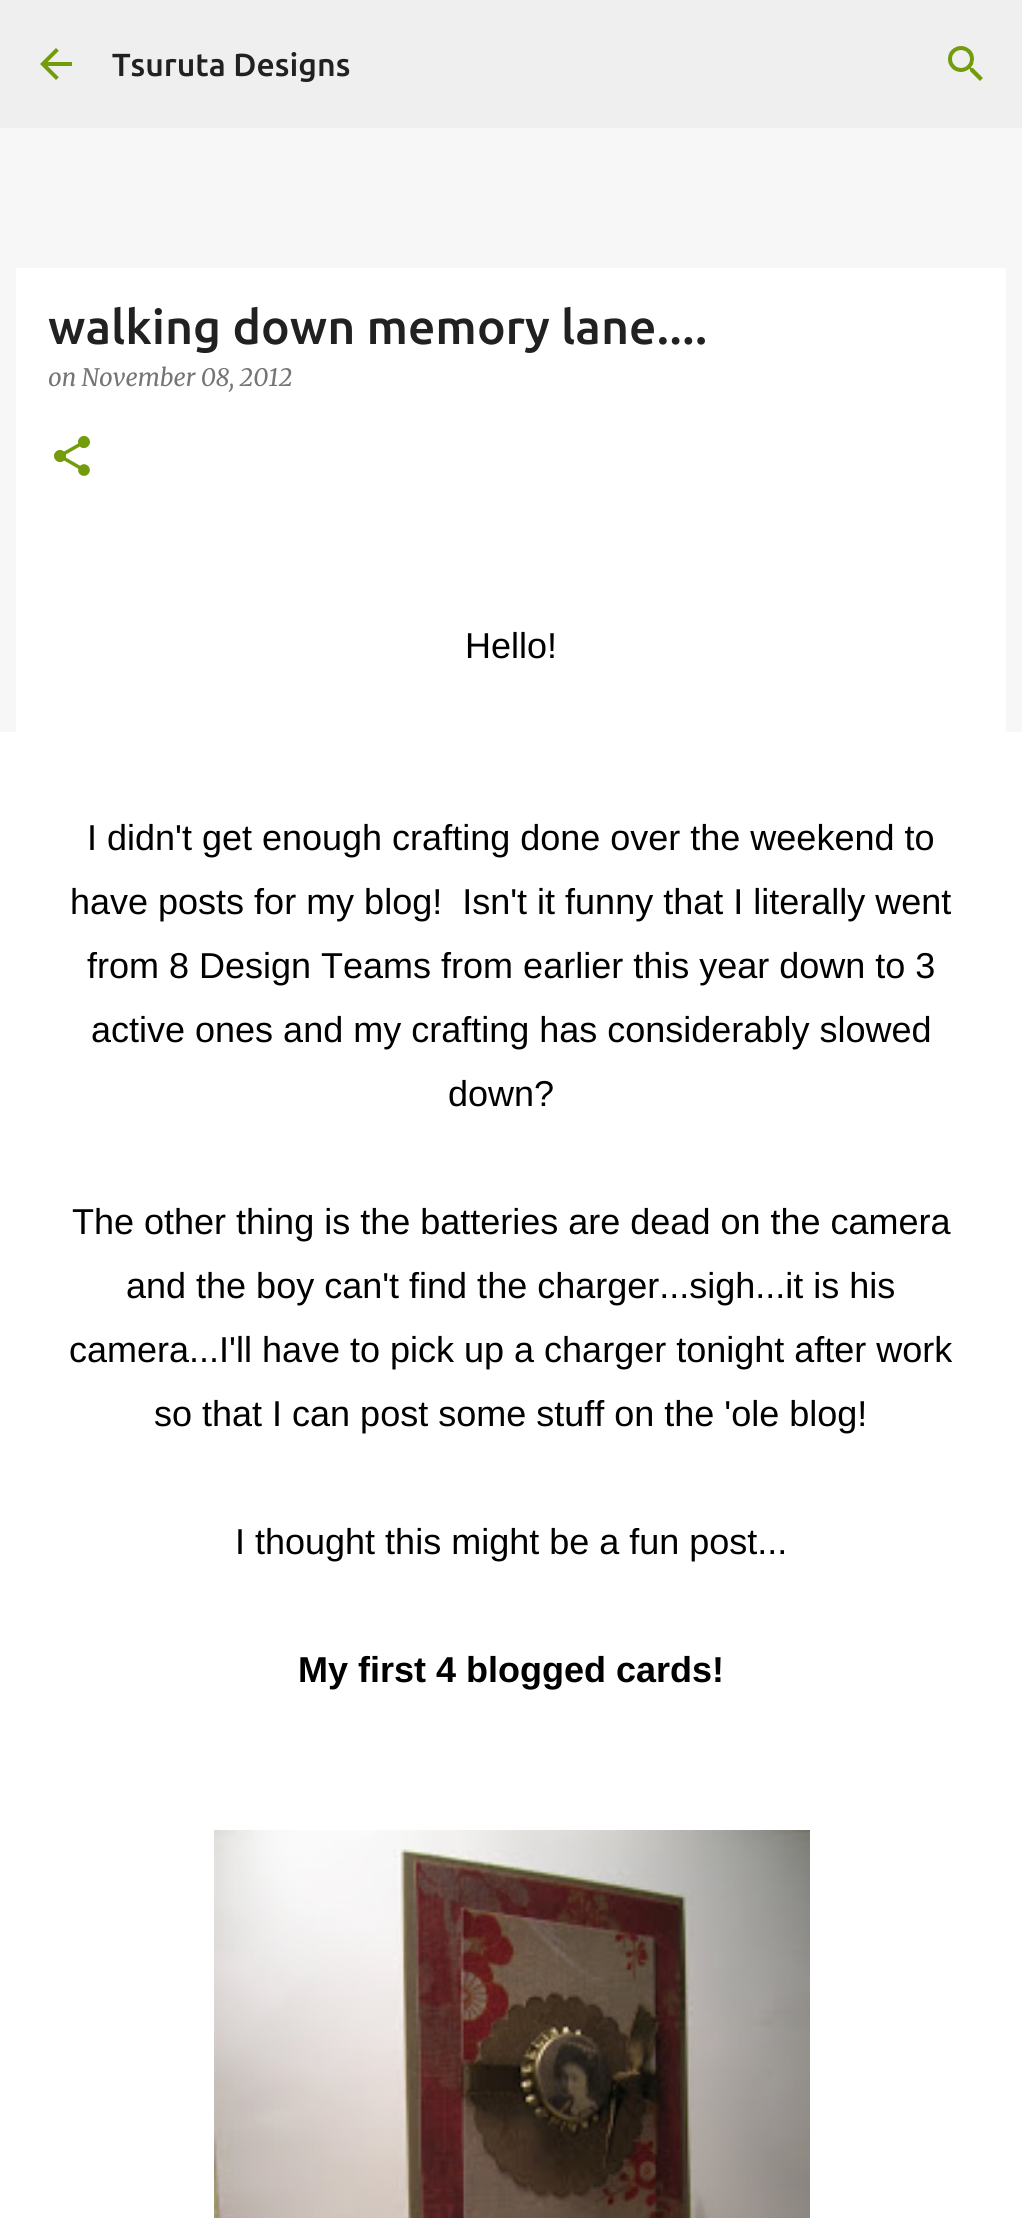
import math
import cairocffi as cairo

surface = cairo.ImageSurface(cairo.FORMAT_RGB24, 1022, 2218)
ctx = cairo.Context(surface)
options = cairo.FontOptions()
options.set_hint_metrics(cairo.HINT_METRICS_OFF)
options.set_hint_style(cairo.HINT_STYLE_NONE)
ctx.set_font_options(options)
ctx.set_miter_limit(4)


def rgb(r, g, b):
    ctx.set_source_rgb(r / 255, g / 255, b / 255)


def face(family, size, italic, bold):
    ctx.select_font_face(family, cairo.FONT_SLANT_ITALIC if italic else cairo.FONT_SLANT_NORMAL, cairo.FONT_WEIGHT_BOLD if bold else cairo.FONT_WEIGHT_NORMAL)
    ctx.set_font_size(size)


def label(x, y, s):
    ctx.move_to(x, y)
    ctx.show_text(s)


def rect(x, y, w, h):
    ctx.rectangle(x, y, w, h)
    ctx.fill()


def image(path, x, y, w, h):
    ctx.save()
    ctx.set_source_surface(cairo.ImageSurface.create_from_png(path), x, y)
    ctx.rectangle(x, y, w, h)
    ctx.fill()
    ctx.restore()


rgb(247, 247, 247)
ctx.paint()
rgb(239, 239, 239)
rect(0, 0, 1022, 128)
image('image0.png', 40, 48, 32, 32)
face('Ubuntu Medium', 32, 0, 0)
rgb(33, 33, 33)
label(112, 76, 'Tsuruta Designs')
image('image1.png', 948, 46, 35, 35)
rgb(255, 255, 255)
rect(0, 732, 1022, 1486)
rect(16, 268, 990, 464)
face('Ubuntu Medium', 48, 0, 0)
rgb(33, 33, 33)
label(48, 344, 'walking down memory lane....')
face('Merriweather', 24, 1, 0)
rgb(117, 117, 117)
label(48, 386, 'on November 08, 2012')
image('image2.png', 54, 436, 36, 40)
face('Liberation Sans', 36, 0, 0)
rgb(0, 0, 0)
label(465, 658, 'Hello!')
label(87, 850, 'I didn\'t get enough crafting done over the weekend to')
label(70, 914, 'have posts for my blog!  Isn\'t it funny that I literally went')
label(87, 978, 'from 8 Design Teams from earlier this year down to 3')
label(91, 1042, 'active ones and my crafting has considerably slowed')
label(448, 1106, 'down?')
label(72, 1234, 'The other thing is the batteries are dead on the camera')
label(126, 1298, 'and the boy can\'t find the charger...sigh...it is his')
label(69, 1362, 'camera...I\'ll have to pick up a charger tonight after work')
label(154, 1426, 'so that I can post some stuff on the \'ole blog!')
label(235, 1554, 'I thought this might be a fun post...')
face('Liberation Sans', 36, 0, 1)
label(298, 1682, 'My first 4 blogged cards!')
image('image3.png', 214, 1830, 596, 388)
surface.write_to_png('render.png')
